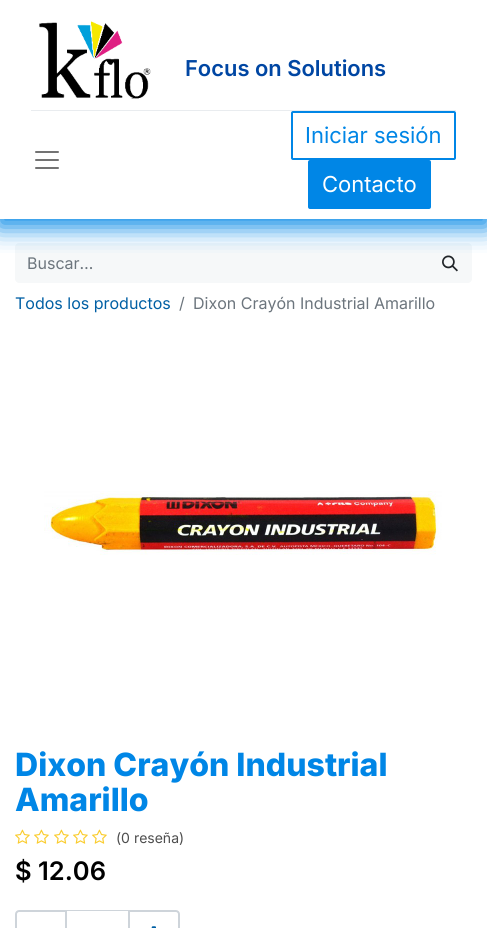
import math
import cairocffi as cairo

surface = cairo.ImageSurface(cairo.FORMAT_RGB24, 487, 928)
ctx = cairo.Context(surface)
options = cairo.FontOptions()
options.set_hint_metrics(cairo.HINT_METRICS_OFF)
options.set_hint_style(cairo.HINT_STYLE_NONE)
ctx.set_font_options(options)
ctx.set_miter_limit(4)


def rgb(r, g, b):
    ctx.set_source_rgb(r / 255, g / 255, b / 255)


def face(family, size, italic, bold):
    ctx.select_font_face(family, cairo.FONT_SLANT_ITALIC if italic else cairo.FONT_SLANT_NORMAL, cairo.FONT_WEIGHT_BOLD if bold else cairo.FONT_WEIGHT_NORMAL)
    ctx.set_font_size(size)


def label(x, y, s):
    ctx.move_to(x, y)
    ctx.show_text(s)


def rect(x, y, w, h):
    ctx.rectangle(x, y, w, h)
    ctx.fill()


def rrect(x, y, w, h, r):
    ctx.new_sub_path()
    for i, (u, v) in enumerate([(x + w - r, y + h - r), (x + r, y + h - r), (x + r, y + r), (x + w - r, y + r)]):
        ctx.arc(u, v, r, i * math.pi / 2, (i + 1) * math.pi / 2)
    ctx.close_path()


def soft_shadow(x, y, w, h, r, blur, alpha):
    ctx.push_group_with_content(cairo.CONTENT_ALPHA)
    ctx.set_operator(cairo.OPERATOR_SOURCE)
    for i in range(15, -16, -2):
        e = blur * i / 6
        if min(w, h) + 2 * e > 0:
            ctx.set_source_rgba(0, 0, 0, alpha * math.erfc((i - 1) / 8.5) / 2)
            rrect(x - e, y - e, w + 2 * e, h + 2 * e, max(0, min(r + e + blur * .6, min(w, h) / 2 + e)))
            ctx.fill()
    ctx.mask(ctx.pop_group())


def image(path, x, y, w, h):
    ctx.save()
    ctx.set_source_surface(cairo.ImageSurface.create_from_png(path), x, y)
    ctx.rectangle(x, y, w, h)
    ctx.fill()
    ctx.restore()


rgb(255, 255, 255)
ctx.paint()
rgb(246, 248, 249)
ctx.new_path()
ctx.move_to(19, 243)
ctx.line_to(429, 243)
ctx.line_to(429, 283)
ctx.line_to(19, 283)
ctx.curve_to(17, 283, 15, 281, 15, 279)
ctx.line_to(15, 247)
ctx.curve_to(15, 245, 17, 243, 19, 243)
ctx.close_path()
ctx.fill()
ctx.new_path()
ctx.move_to(428, 243)
ctx.line_to(468, 243)
ctx.curve_to(470, 243, 472, 245, 472, 247)
ctx.line_to(472, 279)
ctx.curve_to(472, 281, 470, 283, 468, 283)
ctx.line_to(428, 283)
ctx.close_path()
ctx.fill()
image('image2.png', 442, 255, 16, 17)
ctx.save()
ctx.rectangle(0, 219, 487, 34)
ctx.clip()
rgb(0, 134, 230)
soft_shadow(-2, 4, 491, 223, 0, 12.5, 1)
ctx.restore()
image('image0.png', 39, 21, 112, 78)
face('Inter SemiBold', 21.9, 0, 0)
rgb(0, 70, 163)
label(185, 76, 'Focus on Solutions')
rgb(233, 236, 239)
rect(31, 110, 425, 1)
image('image1.png', 35, 151, 24, 18)
rrect(292, 112, 163, 47, 1)
rgb(0, 134, 230)
ctx.stroke()
face('Inter', 22, 0, 0)
label(305, 143, 'Iniciar sesión')
rrect(309, 161, 121, 47, 1)
ctx.fill_preserve()
ctx.stroke()
rgb(255, 255, 255)
label(322, 192, 'Contacto')
face('Inter', 16, 0, 0)
rgb(108, 117, 125)
label(27, 269, 'Buscar…')
rgb(0, 95, 164)
label(15, 309, 'Todos los productos')
rgb(108, 117, 125)
label(179, 309, '/')
label(193, 309, 'Dixon Crayón Industrial Amarillo')
image('image3.png', 44, 491, 398, 64)
face('Inter ExtraBold', 32, 0, 0)
rgb(0, 134, 230)
label(15, 776, 'Dixon Crayón Industrial')
label(15, 811, 'Amarillo')
image('image4.png', 15, 829, 15, 15)
image('image4.png', 34, 829, 15, 15)
image('image4.png', 54, 829, 15, 15)
image('image4.png', 73, 829, 15, 15)
image('image4.png', 92, 829, 15, 15)
face('Inter', 14, 0, 0)
rgb(77, 77, 77)
label(116, 843, '(0 reseña)')
face('Inter SemiBold', 25.5, 0, 0)
rgb(0, 0, 0)
label(15, 880, '$ 12.06')
ctx.rectangle(66.5, 910.5, 62, 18)
rgb(206, 212, 218)
ctx.set_line_width(1)
ctx.stroke()
ctx.new_path()
ctx.move_to(19, 911)
ctx.line_to(66, 911)
ctx.line_to(66, 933)
ctx.line_to(19, 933)
ctx.curve_to(17.5, 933, 16, 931.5, 16, 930)
ctx.line_to(16, 914)
ctx.curve_to(16, 912.5, 17.5, 911, 19, 911)
ctx.close_path()
ctx.set_line_width(2)
ctx.stroke()
ctx.new_path()
ctx.move_to(129, 911)
ctx.line_to(176, 911)
ctx.curve_to(177.5, 911, 179, 912.5, 179, 914)
ctx.line_to(179, 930)
ctx.curve_to(179, 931.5, 177.5, 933, 176, 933)
ctx.line_to(129, 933)
ctx.close_path()
ctx.stroke()
image('image5.png', 151, 926, 5, 2)
surface.write_to_png('render.png')
